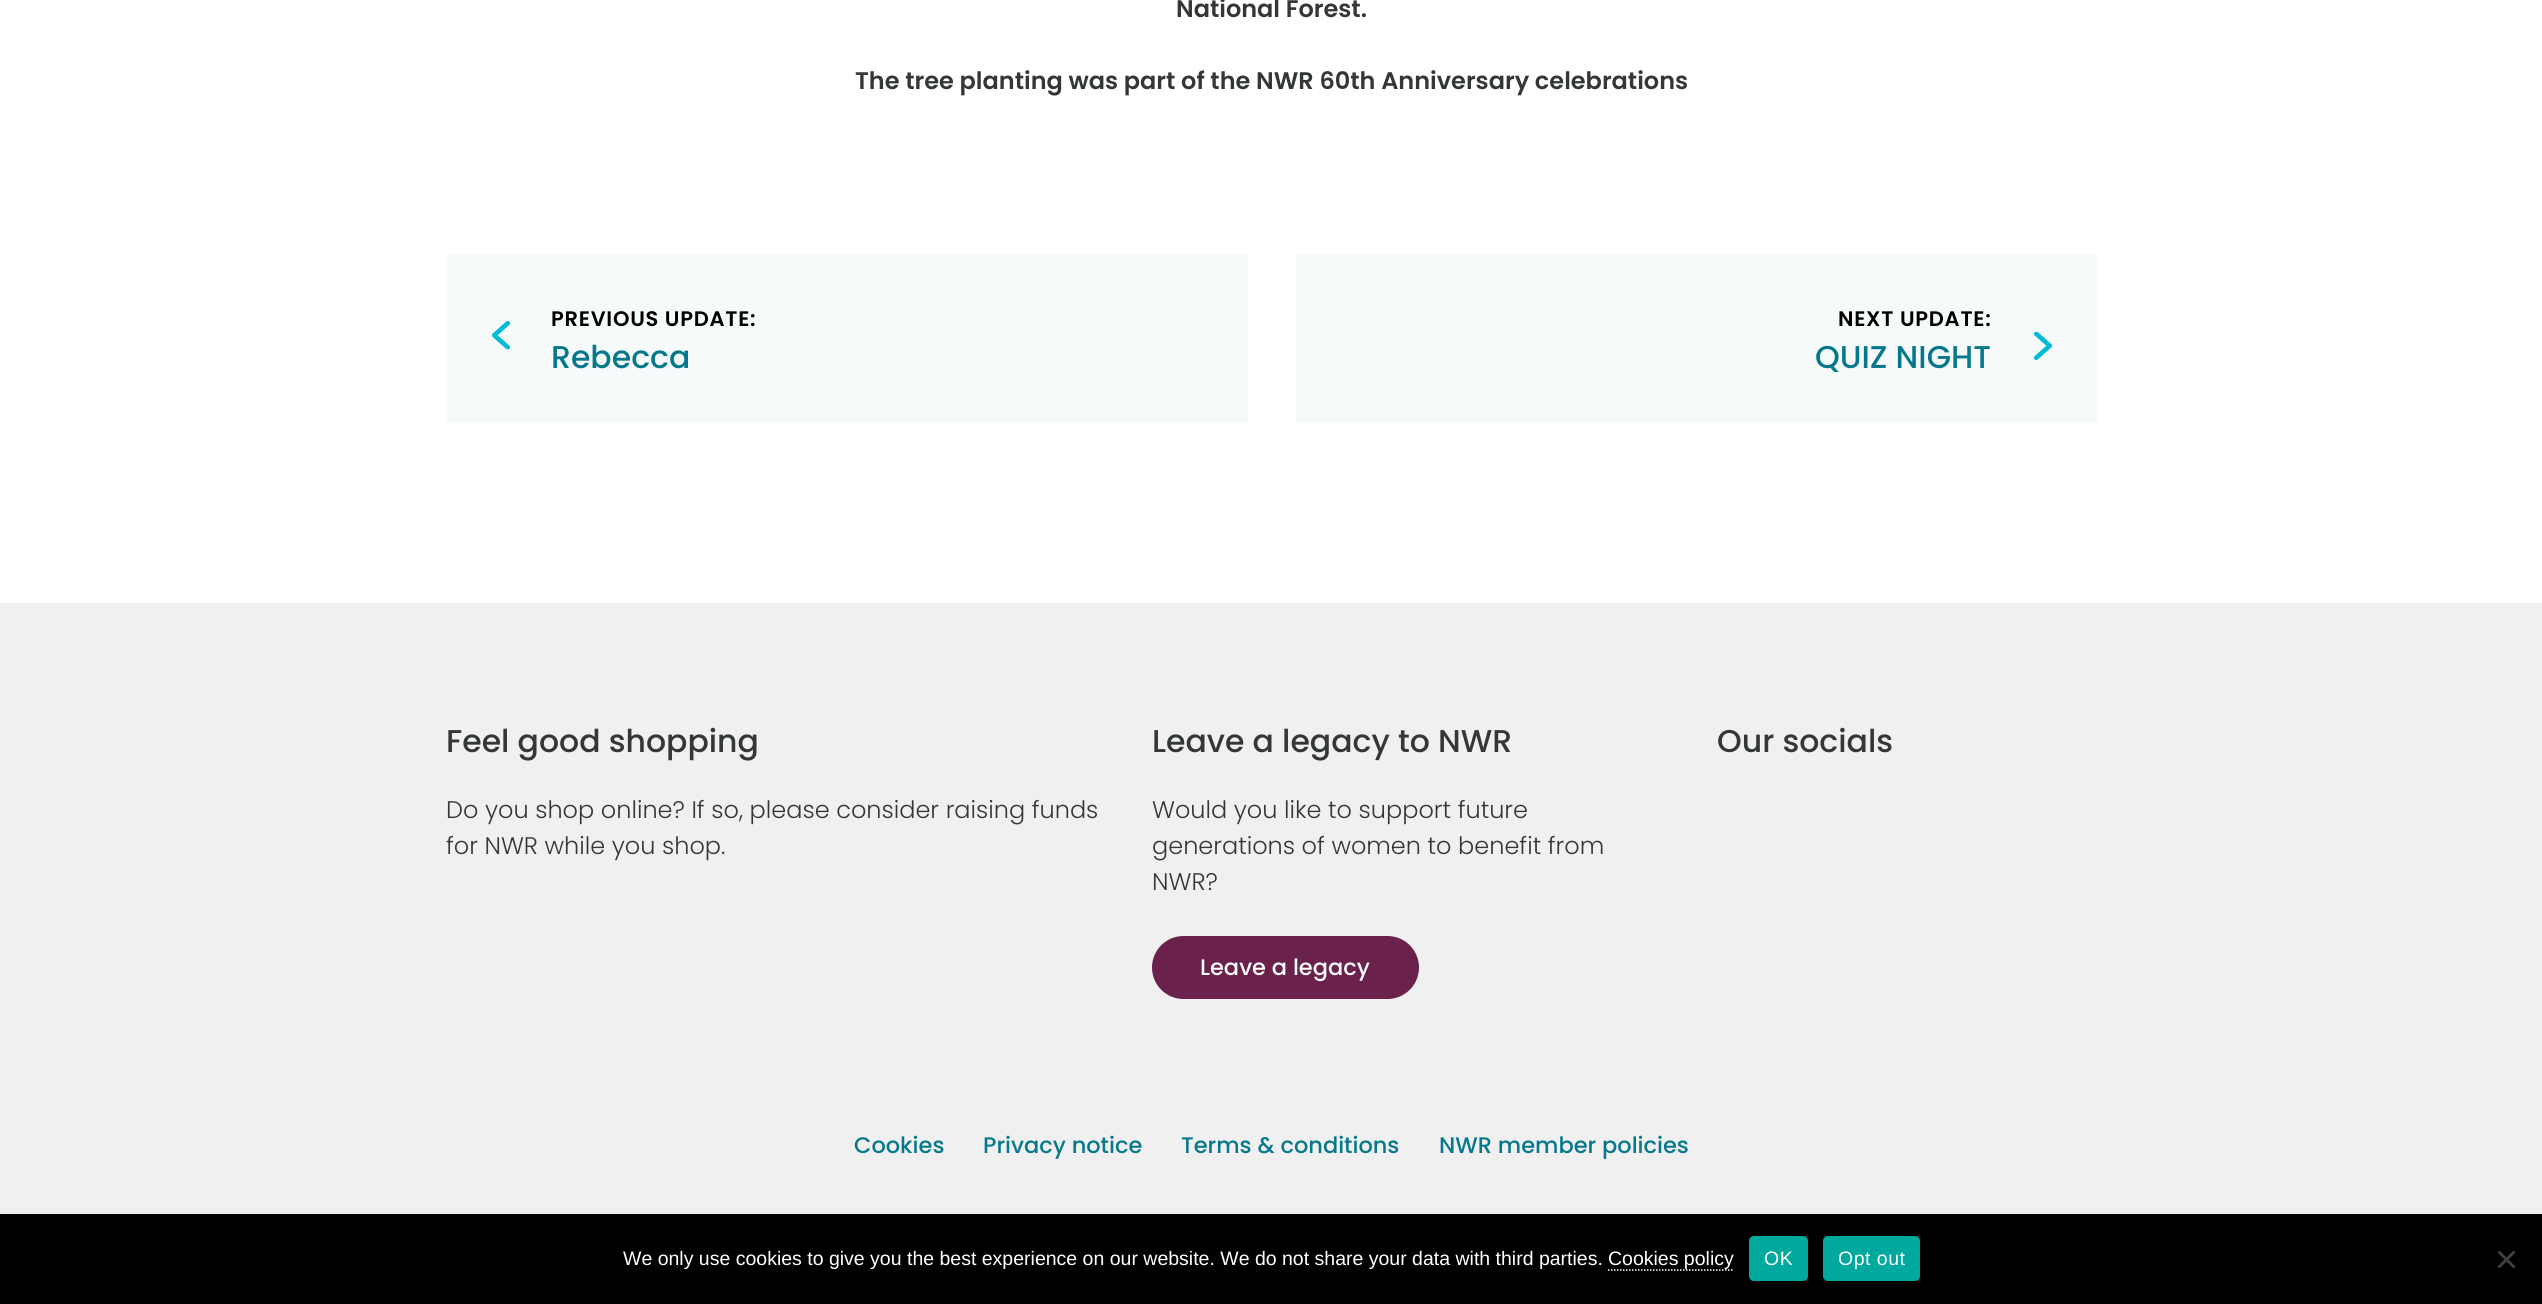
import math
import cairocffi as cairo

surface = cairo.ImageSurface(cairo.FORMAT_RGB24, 2542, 1304)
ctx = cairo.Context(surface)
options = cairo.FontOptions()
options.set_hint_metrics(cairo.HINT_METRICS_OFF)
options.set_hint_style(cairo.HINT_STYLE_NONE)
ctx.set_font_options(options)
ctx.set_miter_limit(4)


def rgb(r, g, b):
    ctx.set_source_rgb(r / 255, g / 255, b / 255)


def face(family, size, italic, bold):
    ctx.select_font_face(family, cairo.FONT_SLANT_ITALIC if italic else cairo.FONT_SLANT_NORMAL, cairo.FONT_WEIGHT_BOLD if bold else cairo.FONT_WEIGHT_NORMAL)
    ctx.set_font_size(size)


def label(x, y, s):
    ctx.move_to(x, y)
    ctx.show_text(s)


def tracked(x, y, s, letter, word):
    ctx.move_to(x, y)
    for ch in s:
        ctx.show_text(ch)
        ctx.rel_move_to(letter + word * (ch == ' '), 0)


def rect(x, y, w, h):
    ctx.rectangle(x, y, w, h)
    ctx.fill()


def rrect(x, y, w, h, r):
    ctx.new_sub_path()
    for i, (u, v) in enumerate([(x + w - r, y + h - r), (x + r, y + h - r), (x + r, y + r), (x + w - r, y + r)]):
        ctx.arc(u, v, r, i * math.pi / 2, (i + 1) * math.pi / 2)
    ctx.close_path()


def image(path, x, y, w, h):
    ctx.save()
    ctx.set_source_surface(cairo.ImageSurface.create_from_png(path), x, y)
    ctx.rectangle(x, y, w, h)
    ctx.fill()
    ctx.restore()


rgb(255, 255, 255)
ctx.paint()
face('Poppins SemiBold', 24, 0, 0)
rgb(51, 56, 52)
label(1176, 17, 'National Forest.')
label(855, 89, 'The tree planting was part of the NWR 60th Anniversary celebrations')
rgb(246, 250, 250)
rect(447, 255, 801, 168)
face('Poppins SemiBold', 21, 0, 0)
rgb(0, 0, 0)
tracked(551, 326, 'PREVIOUS UPDATE:', 0.75, 0)
image('image0.png', 492, 321, 18, 29)
face('Poppins Medium', 31.5, 0, 0)
rgb(6, 120, 140)
label(551, 368, 'Rebecca')
rgb(246, 250, 250)
rect(1296, 255, 801, 168)
face('Poppins SemiBold', 21, 0, 0)
rgb(0, 0, 0)
tracked(1838, 326, 'NEXT UPDATE:', 0.75, 0)
face('Poppins Medium', 31.5, 0, 0)
rgb(6, 120, 140)
label(1815, 368, 'QUIZ NIGHT')
image('image1.png', 2034, 332, 18, 28)
rgb(240, 240, 240)
rect(0, 603, 2542, 611)
rgb(51, 56, 52)
label(446, 752, 'Feel good shopping')
face('Poppins Light', 24, 0, 0)
label(446, 818, 'Do you shop online? If so, please consider raising funds')
label(446, 854, 'for NWR while you shop.')
face('Poppins Medium', 31.5, 0, 0)
label(1152, 752, 'Leave a legacy to NWR')
face('Poppins Light', 24, 0, 0)
label(1152, 818, 'Would you like to support future')
label(1152, 854, 'generations of women to benefit from')
label(1152, 890, 'NWR?')
rgb(106, 34, 76)
rrect(1153.5, 937.5, 264, 60, 30)
ctx.fill_preserve()
ctx.set_line_width(3)
ctx.stroke()
face('Poppins Medium', 22.5, 0, 0)
rgb(255, 255, 255)
label(1200, 975, 'Leave a legacy')
face('Poppins Medium', 31.5, 0, 0)
rgb(51, 56, 52)
label(1717, 752, 'Our socials')
face('Poppins Medium', 22.5, 0, 0)
rgb(6, 120, 140)
label(854, 1153, 'Cookies')
label(983, 1153, 'Privacy notice')
label(1181, 1153, 'Terms & conditions')
label(1439, 1153, 'NWR member policies')
rgb(0, 0, 0)
rect(0, 1214, 2542, 90)
face('Liberation Sans', 19.5, 0, 0)
rgb(255, 255, 255)
label(623, 1265, 'We only use cookies to give you the best experience on our website. We do not share your data with third parties.')
ctx.new_path()
ctx.move_to(1608, 1270)
ctx.line_to(1734, 1270)
ctx.set_line_width(1.5)
ctx.set_dash([1.5, 1.5])
ctx.stroke()
label(1608, 1265, 'Cookies policy')
rgb(0, 169, 157)
rrect(1749, 1236, 59, 45, 5)
ctx.fill()
rgb(255, 255, 255)
tracked(1764, 1265, 'OK', 0.5, 0)
rgb(0, 169, 157)
rrect(1823, 1236, 97, 45, 5)
ctx.fill()
rgb(255, 255, 255)
tracked(1838, 1265, 'Opt out', 0.5, 0)
rgb(64, 64, 64)
ctx.new_path()
ctx.move_to(2513.5, 1250.5)
ctx.line_to(2515.5, 1252.5)
ctx.line_to(2499.5, 1268.5)
ctx.line_to(2497.5, 1266.5)
ctx.close_path()
ctx.fill()
ctx.new_path()
ctx.move_to(2497.5, 1252.5)
ctx.line_to(2499.5, 1250.5)
ctx.line_to(2515.5, 1266.5)
ctx.line_to(2513.5, 1268.5)
ctx.close_path()
ctx.fill()
surface.write_to_png('render.png')
